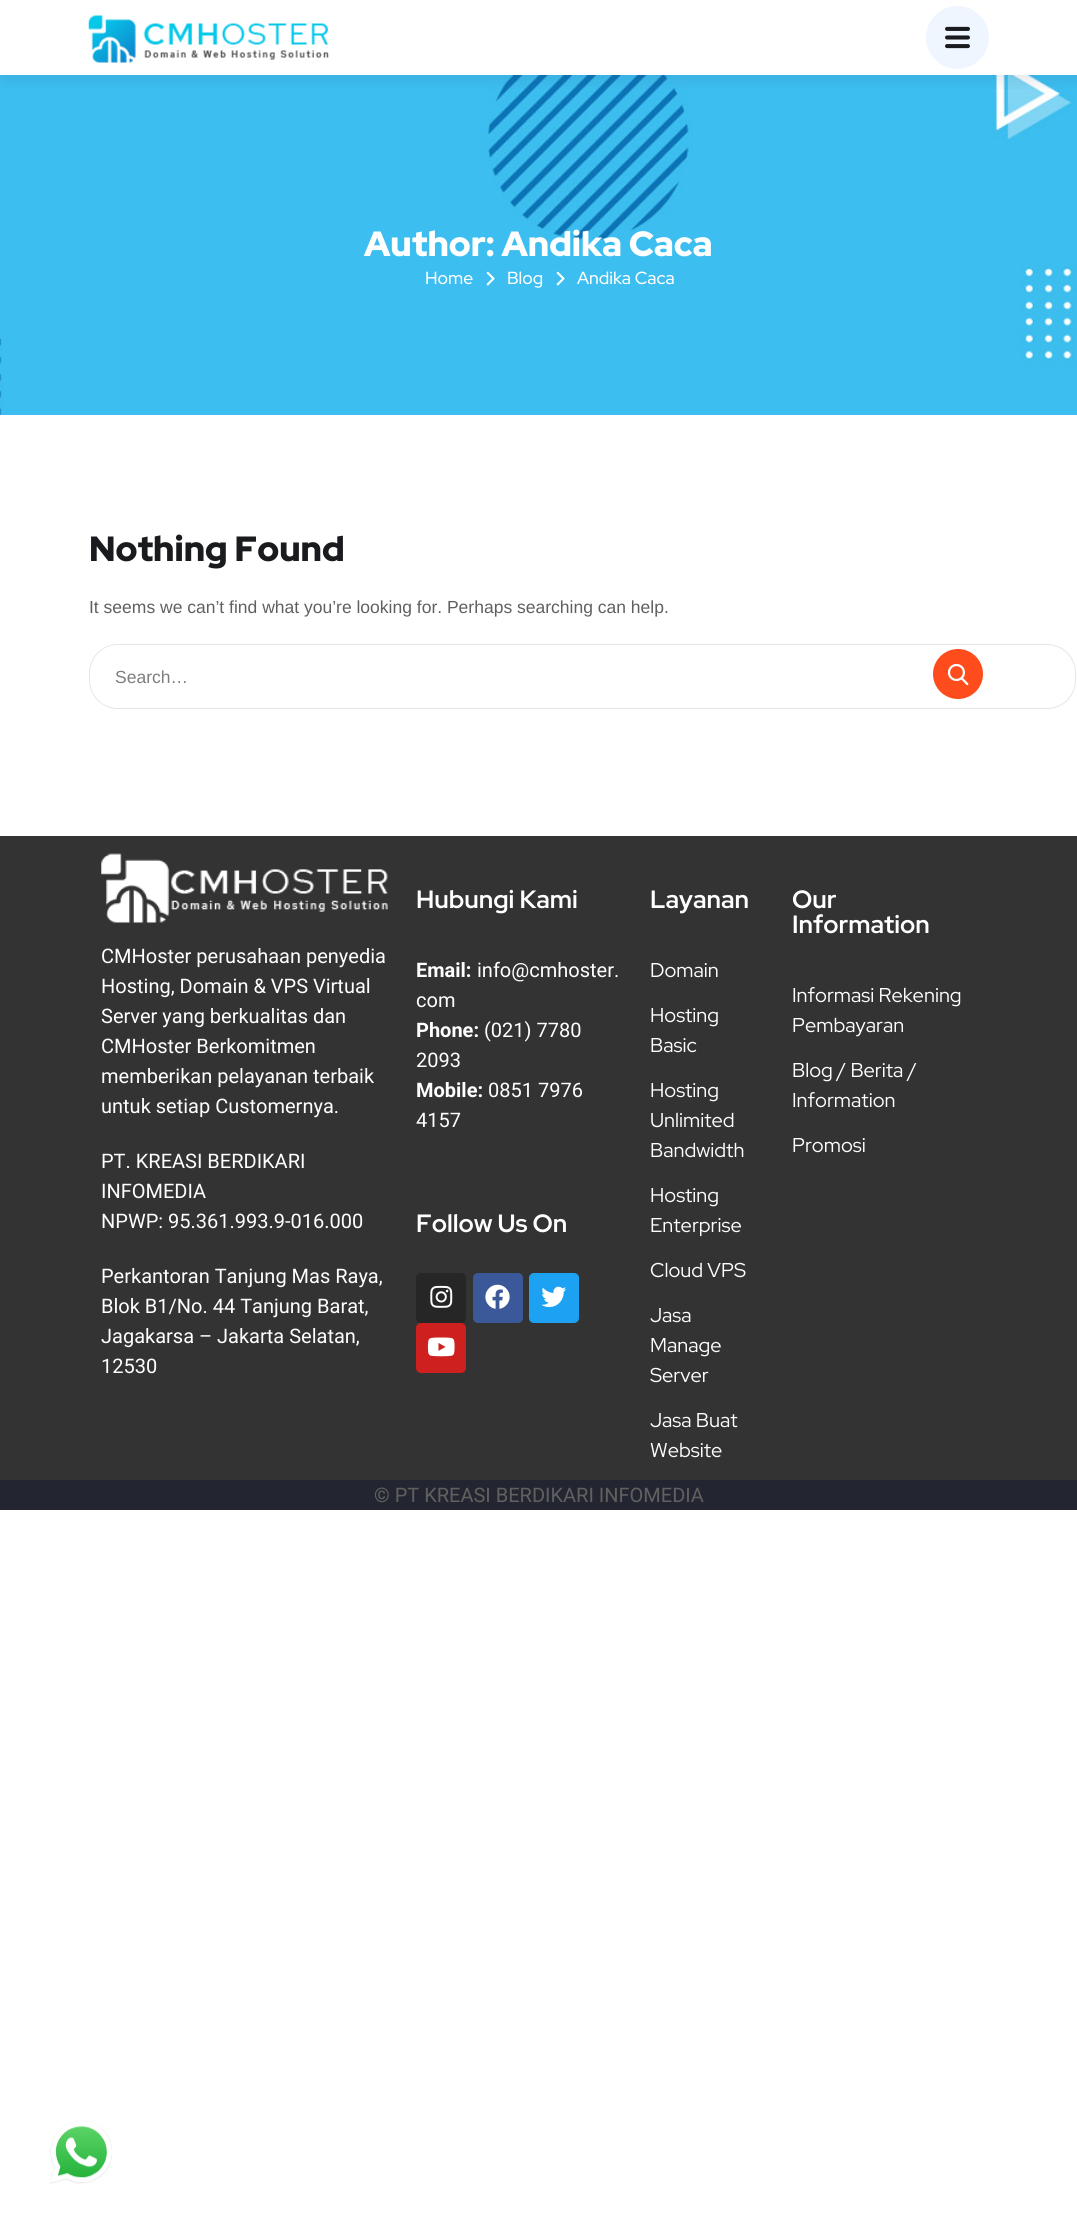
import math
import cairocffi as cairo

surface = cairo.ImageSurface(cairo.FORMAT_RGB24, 1077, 2221)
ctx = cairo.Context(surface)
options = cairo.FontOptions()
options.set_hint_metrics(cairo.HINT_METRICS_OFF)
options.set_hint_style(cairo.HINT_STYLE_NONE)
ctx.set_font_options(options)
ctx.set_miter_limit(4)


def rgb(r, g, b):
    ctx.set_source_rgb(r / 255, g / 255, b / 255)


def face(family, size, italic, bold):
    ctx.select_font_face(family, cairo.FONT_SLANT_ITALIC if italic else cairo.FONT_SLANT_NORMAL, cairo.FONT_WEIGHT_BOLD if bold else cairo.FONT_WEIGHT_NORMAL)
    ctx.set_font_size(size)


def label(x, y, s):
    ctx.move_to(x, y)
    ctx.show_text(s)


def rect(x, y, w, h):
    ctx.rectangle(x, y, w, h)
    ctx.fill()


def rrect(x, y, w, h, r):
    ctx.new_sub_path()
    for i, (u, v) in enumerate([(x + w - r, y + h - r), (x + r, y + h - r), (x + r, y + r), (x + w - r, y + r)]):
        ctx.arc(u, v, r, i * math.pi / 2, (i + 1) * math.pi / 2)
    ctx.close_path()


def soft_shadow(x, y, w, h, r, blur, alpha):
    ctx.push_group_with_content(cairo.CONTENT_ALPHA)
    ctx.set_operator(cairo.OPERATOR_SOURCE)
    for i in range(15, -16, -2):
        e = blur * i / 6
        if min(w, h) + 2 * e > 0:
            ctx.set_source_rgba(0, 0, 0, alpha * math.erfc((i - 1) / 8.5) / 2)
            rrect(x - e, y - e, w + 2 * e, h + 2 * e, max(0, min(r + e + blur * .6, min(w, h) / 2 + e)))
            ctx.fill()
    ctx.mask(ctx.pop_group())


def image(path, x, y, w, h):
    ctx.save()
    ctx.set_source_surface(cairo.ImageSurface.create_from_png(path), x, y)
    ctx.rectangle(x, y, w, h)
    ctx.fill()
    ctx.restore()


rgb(255, 255, 255)
ctx.paint()
image('image2.png', 0, 75, 1077, 340)
ctx.save()
ctx.rectangle(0, 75, 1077, 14)
ctx.clip()
rgb(42, 67, 113)
soft_shadow(3, 3, 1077, 75, 0, 9.5, 0.15)
ctx.restore()
image('image0.png', 88, 15, 241, 48)
rgb(240, 246, 255)
ctx.arc(957.5, 37.5, 31.5, 0, 2 * math.pi)
ctx.fill()
image('image1.png', 945, 26, 25, 23)
face('Red Hat Display Black', 35, 0, 0)
rgb(255, 255, 255)
label(364, 256, 'Author: Andika Caca')
face('Red Hat Display Medium', 17.5, 0, 0)
label(425, 284, 'Home')
image('image3.png', 486, 271, 9, 15)
label(507, 284, 'Blog')
image('image3.png', 556, 271, 9, 15)
label(577, 284, 'Andika Caca')
face('Red Hat Display Black', 35, 0, 0)
rgb(26, 27, 30)
label(89, 561, 'Nothing Found')
face('Liberation Sans', 17.5, 0, 0)
rgb(96, 96, 96)
label(89, 613, 'It seems we can’t find what you’re looking for. Perhaps searching can help.')
rrect(89.5, 644.5, 986, 64, 28.5)
rgb(230, 230, 230)
ctx.set_line_width(1)
ctx.stroke()
rgb(126, 126, 126)
label(115, 683, 'Search…')
rgb(254, 76, 28)
ctx.new_path()
ctx.arc(958, 674, 25, 0, 2 * math.pi)
ctx.fill()
image('image4.png', 947, 663, 22, 23)
rgb(51, 51, 51)
rect(0, 836, 1077, 644)
image('image5.png', 101, 853, 287, 70)
face('Roboto', 20, 0, 0)
rgb(255, 255, 255)
label(101, 963, 'CMHoster perusahaan penyedia')
label(101, 993, 'Hosting, Domain & VPS Virtual')
label(101, 1023, 'Server yang berkualitas dan')
label(101, 1053, 'CMHoster Berkomitmen')
label(101, 1083, 'memberikan pelayanan terbaik')
label(101, 1113, 'untuk setiap Customernya.')
label(101, 1168, 'PT. KREASI BERDIKARI')
label(101, 1198, 'INFOMEDIA')
label(101, 1228, 'NPWP: 95.361.993.9-016.000')
label(101, 1283, 'Perkantoran Tanjung Mas Raya,')
label(101, 1313, 'Blok B1/No. 44 Tanjung Barat,')
label(101, 1343, 'Jagakarsa – Jakarta Selatan,')
label(101, 1373, '12530')
face('Red Hat Display', 25, 0, 1)
label(416, 908, 'Hubungi Kami')
face('Roboto', 20, 0, 1)
label(416, 977, 'Email:')
face('Roboto', 20, 0, 0)
label(477, 977, 'info@cmhoster.')
label(416, 1007, 'com')
face('Roboto', 20, 0, 1)
label(416, 1037, 'Phone:')
face('Roboto', 20, 0, 0)
label(484, 1037, '(021) 7780')
label(416, 1067, '2093')
face('Roboto', 20, 0, 1)
label(416, 1097, 'Mobile:')
face('Roboto', 20, 0, 0)
label(488, 1097, '0851 7976')
label(416, 1127, '4157')
face('Red Hat Display', 25, 0, 1)
label(416, 1232, 'Follow Us On')
rgb(38, 38, 38)
rrect(416, 1273, 50, 50, 5)
ctx.fill()
image('image6.png', 430, 1285, 23, 23)
rgb(59, 89, 152)
rrect(473, 1273, 50, 50, 5)
ctx.fill()
image('image7.png', 485, 1284, 25, 25)
rgb(29, 161, 242)
rrect(529, 1273, 50, 50, 5)
ctx.fill()
image('image8.png', 541, 1286, 26, 21)
rgb(205, 32, 31)
rrect(416, 1323, 50, 50, 5)
ctx.fill()
image('image9.png', 427, 1337, 28, 20)
rgb(255, 255, 255)
label(650, 908, 'Layanan')
face('Red Hat Display', 20, 0, 0)
label(650, 977, 'Domain')
label(650, 1022, 'Hosting')
label(650, 1052, 'Basic')
label(650, 1097, 'Hosting')
label(650, 1127, 'Unlimited')
label(650, 1157, 'Bandwidth')
label(650, 1202, 'Hosting')
label(650, 1232, 'Enterprise')
label(650, 1277, 'Cloud VPS')
label(650, 1322, 'Jasa')
label(650, 1352, 'Manage')
label(650, 1382, 'Server')
label(650, 1427, 'Jasa Buat')
label(650, 1457, 'Website')
face('Red Hat Display', 25, 0, 1)
label(792, 908, 'Our')
label(792, 933, 'Information')
face('Red Hat Display', 20, 0, 0)
label(792, 1002, 'Informasi Rekening')
label(792, 1032, 'Pembayaran')
label(792, 1077, 'Blog / Berita /')
label(792, 1107, 'Information')
label(792, 1152, 'Promosi')
rgb(35, 38, 49)
rect(0, 1480, 1077, 30)
face('Roboto', 20, 0, 0)
rgb(96, 96, 96)
label(374, 1502, '© PT KREASI BERDIKARI INFOMEDIA')
image('image10.png', 50, 2121, 63, 63)
surface.write_to_png('render.png')
